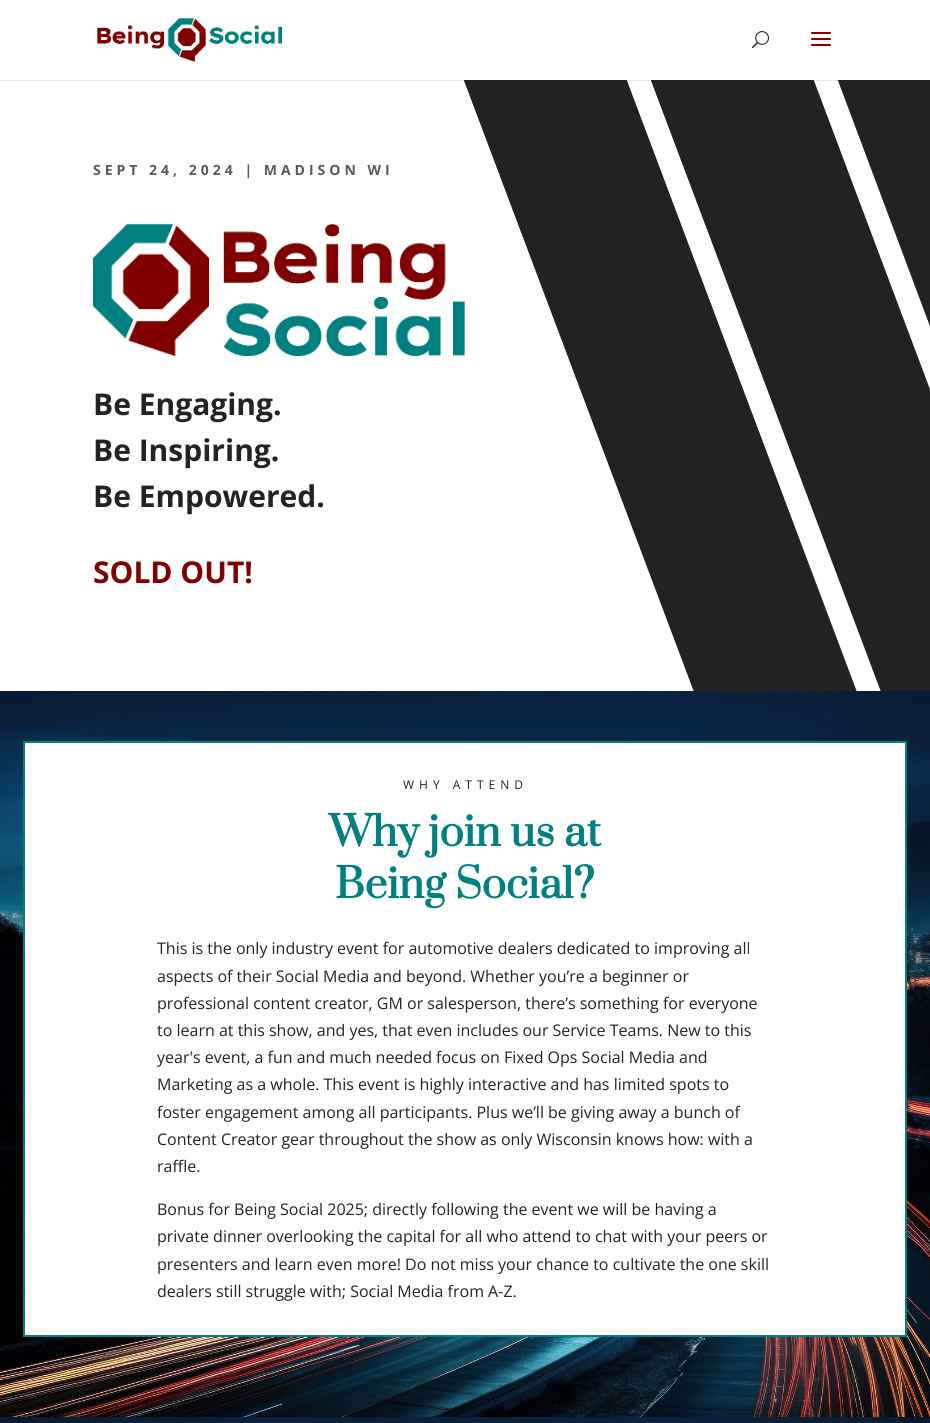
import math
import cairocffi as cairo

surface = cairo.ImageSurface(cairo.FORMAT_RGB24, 930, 1423)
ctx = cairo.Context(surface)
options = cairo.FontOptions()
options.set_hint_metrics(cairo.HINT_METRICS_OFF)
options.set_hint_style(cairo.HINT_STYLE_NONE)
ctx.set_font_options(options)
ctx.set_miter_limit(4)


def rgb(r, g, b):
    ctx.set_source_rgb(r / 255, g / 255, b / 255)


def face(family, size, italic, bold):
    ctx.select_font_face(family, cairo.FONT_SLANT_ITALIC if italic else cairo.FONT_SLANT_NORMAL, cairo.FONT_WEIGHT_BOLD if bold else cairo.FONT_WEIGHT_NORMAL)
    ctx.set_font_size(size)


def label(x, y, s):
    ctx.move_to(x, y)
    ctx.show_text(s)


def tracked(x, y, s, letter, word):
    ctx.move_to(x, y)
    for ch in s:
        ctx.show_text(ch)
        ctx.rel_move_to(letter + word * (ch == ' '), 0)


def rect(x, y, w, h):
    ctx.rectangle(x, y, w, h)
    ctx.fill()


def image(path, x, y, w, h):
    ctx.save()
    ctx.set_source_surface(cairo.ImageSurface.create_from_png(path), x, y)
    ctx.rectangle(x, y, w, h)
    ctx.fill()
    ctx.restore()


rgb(34, 34, 34)
ctx.paint()
rgb(255, 255, 255)
ctx.new_path()
ctx.move_to(-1, 78)
ctx.line_to(-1, 692)
ctx.line_to(694, 692)
ctx.line_to(463, 78)
ctx.close_path()
ctx.fill()
ctx.new_path()
ctx.move_to(626, 78)
ctx.line_to(857, 692)
ctx.line_to(881, 692)
ctx.line_to(650, 78)
ctx.close_path()
ctx.fill()
ctx.new_path()
ctx.move_to(837, 78)
ctx.line_to(813, 78)
ctx.line_to(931, 392)
ctx.line_to(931, 329)
ctx.close_path()
ctx.fill()
ctx.set_source_rgba(0, 0, 0, 0.1)
rect(0, 80, 930, 1)
rgb(255, 255, 255)
rect(0, 0, 930, 80)
image('image0.png', 97, 18, 185, 44)
image('image1.png', 752, 31, 17, 18)
image('image2.png', 811, 32, 20, 14)
face('Open Sans', 14, 0, 1)
rgb(89, 89, 89)
tracked(93, 175, 'SEPT 24, 2024 | MADISON WI', 4, 0)
image('image3.png', 93, 224, 372, 132)
face('Open Sans', 30, 0, 1)
rgb(35, 35, 35)
label(93, 415, 'Be Engaging.')
label(93, 461, 'Be Inspiring.')
label(93, 507, 'Be Empowered.')
rgb(128, 0, 0)
label(93, 583, 'SOLD OUT!')
image('image4.png', 0, 691, 930, 726)
rgb(255, 255, 255)
ctx.rectangle(24, 742, 882, 594)
ctx.fill_preserve()
rgb(0, 128, 128)
ctx.stroke()
face('Open Sans', 12, 0, 0)
rgb(35, 35, 35)
tracked(403, 789, 'WHY ATTEND', 5, 0)
face('Prata', 40, 0, 1)
rgb(0, 128, 128)
label(329, 846, 'Why join us at')
label(335, 898, 'Being Social?')
face('Open Sans', 16, 0, 0)
rgb(35, 35, 35)
label(157, 954, 'This is the only industry event for automotive dealers dedicated to improving all')
label(157, 982, 'aspects of their Social Media and beyond. Whether you’re a beginner or')
label(157, 1009, 'professional content creator, GM or salesperson, there’s something for everyone')
label(157, 1036, 'to learn at this show, and yes, that even includes our Service Teams. New to this')
label(157, 1063, 'year\'s event, a fun and much needed focus on Fixed Ops Social Media and')
label(157, 1090, 'Marketing as a whole. This event is highly interactive and has limited spots to')
label(157, 1118, 'foster engagement among all participants. Plus we’ll be giving away a bunch of')
label(157, 1145, 'Content Creator gear throughout the show as only Wisconsin knows how: with a')
label(157, 1172, 'raffle.')
label(157, 1215, 'Bonus for Being Social 2025; directly following the event we will be having a')
label(157, 1242, 'private dinner overlooking the capital for all who attend to chat with your peers or')
label(157, 1270, 'presenters and learn even more! Do not miss your chance to cultivate the one skill')
label(157, 1297, 'dealers still struggle with; Social Media from A-Z.')
image('image5.png', 0, 1417, 930, 6)
surface.write_to_png('render.png')
